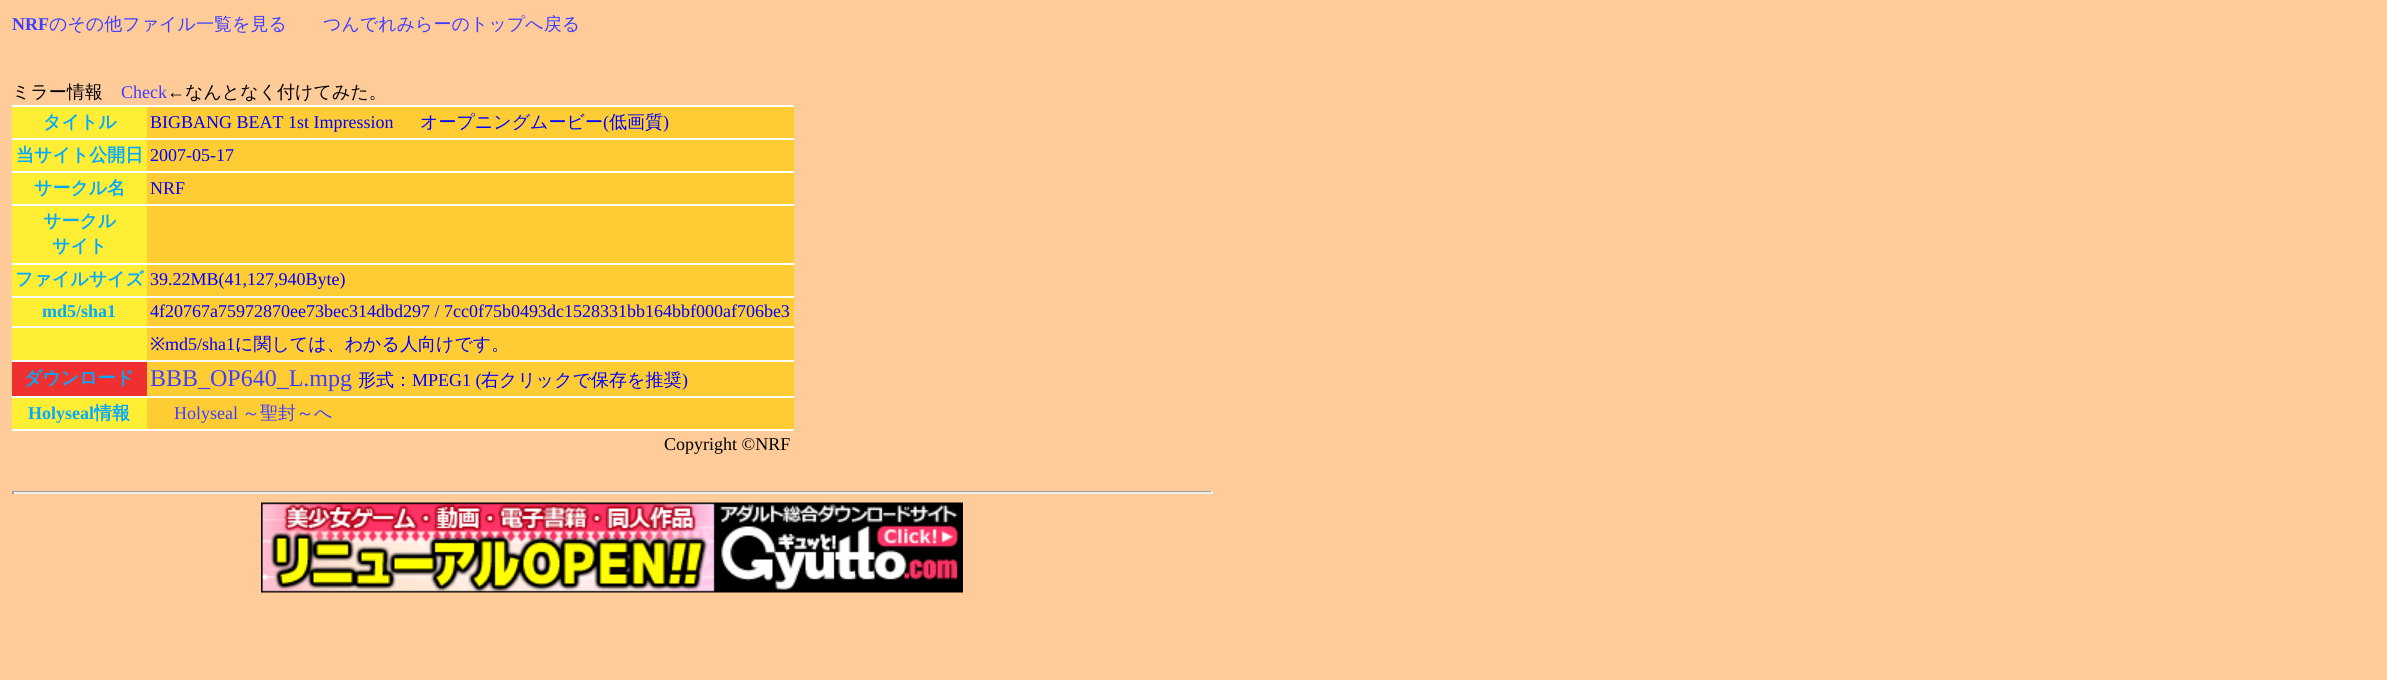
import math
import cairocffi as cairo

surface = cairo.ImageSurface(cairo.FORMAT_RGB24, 2387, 680)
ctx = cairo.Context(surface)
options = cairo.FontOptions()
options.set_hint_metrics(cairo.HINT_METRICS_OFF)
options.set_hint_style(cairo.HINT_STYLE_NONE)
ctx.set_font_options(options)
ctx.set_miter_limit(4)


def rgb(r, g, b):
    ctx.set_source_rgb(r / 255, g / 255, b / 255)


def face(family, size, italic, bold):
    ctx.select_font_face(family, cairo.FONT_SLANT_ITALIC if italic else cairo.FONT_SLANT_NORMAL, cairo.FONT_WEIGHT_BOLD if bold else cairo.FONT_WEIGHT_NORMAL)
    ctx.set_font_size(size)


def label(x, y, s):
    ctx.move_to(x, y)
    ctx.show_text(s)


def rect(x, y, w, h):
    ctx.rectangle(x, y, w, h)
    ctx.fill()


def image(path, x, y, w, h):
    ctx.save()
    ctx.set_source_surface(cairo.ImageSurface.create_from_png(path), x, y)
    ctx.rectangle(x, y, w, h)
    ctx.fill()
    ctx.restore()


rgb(255, 204, 153)
ctx.paint()
face('Liberation Serif', 18, 0, 1)
rgb(62, 62, 255)
label(12, 30, 'NRF')
face('WenQuanYi Zen Hei Medium', 18, 0, 0)
label(49, 30, 'のその他ファイル一覧を見る')
label(323, 30, 'つんでれみらーのトップへ戻る')
rgb(0, 0, 0)
label(12, 98, 'ミラー情報')
face('Liberation Serif', 18, 0, 0)
rgb(62, 62, 255)
label(121, 98, 'Check')
rgb(0, 0, 0)
label(167, 98, '←')
face('WenQuanYi Zen Hei Medium', 18, 0, 0)
label(185, 98, 'なんとなく付けてみた。')
rgb(255, 238, 51)
rect(12, 107, 135, 31)
rgb(255, 255, 255)
rect(12, 105, 782, 2)
face('WenQuanYi Zen Hei', 18, 0, 1)
rgb(0, 170, 255)
label(43, 128, 'タイトル')
rgb(255, 204, 51)
rect(147, 107, 647, 31)
face('Liberation Serif', 18, 0, 0)
rgb(0, 0, 255)
label(150, 128, 'BIGBANG BEAT 1st Impression')
face('WenQuanYi Zen Hei Medium', 18, 0, 0)
label(420, 128, 'オープニングムービー')
face('Liberation Serif', 18, 0, 0)
label(603, 128, '(')
face('WenQuanYi Zen Hei Medium', 18, 0, 0)
label(609, 128, '低画質')
face('Liberation Serif', 18, 0, 0)
label(663, 128, ')')
rgb(255, 238, 51)
rect(12, 140, 135, 31)
rgb(255, 255, 255)
rect(12, 138, 782, 2)
face('WenQuanYi Zen Hei', 18, 0, 1)
rgb(0, 170, 255)
label(16, 161, '当サイト公開日')
rgb(255, 204, 51)
rect(147, 140, 647, 31)
face('Liberation Serif', 18, 0, 0)
rgb(0, 0, 255)
label(150, 161, '2007-05-17')
rgb(255, 238, 51)
rect(12, 173, 135, 31)
rgb(255, 255, 255)
rect(12, 171, 782, 2)
face('WenQuanYi Zen Hei', 18, 0, 1)
rgb(0, 170, 255)
label(34, 194, 'サークル名')
rgb(255, 204, 51)
rect(147, 173, 647, 31)
face('Liberation Serif', 18, 0, 0)
rgb(0, 0, 255)
label(150, 194, 'NRF')
rgb(255, 238, 51)
rect(12, 206, 135, 57)
rgb(255, 255, 255)
rect(12, 204, 782, 2)
face('WenQuanYi Zen Hei', 18, 0, 1)
rgb(0, 170, 255)
label(43, 227, 'サークル')
label(52, 252, 'サイト')
rgb(255, 204, 51)
rect(147, 206, 647, 57)
rgb(255, 238, 51)
rect(12, 265, 135, 31)
rgb(255, 255, 255)
rect(12, 263, 782, 2)
rgb(0, 170, 255)
label(15, 285, 'ファイルサイズ')
rgb(255, 204, 51)
rect(147, 265, 647, 31)
face('Liberation Serif', 18, 0, 0)
rgb(0, 0, 255)
label(150, 285, '39.22MB(41,127,940Byte)')
rgb(255, 238, 51)
rect(12, 298, 135, 28)
rgb(255, 255, 255)
rect(12, 296, 782, 2)
face('Liberation Serif', 18, 0, 1)
rgb(0, 170, 255)
label(42, 317, 'md5/sha1')
rgb(255, 204, 51)
rect(147, 298, 647, 28)
face('Liberation Serif', 18, 0, 0)
rgb(0, 0, 255)
label(150, 317, '4f20767a75972870ee73bec314dbd297 / 7cc0f75b0493dc1528331bb164bbf000af706be3')
rgb(255, 238, 51)
rect(12, 328, 135, 32)
rgb(255, 255, 255)
rect(12, 326, 782, 2)
rgb(255, 204, 51)
rect(147, 328, 647, 32)
face('Noto Sans', 18, 0, 0)
rgb(0, 0, 255)
label(150, 350, '※')
face('Liberation Serif', 18, 0, 0)
label(165, 350, 'md5/sha1')
face('WenQuanYi Zen Hei Medium', 18, 0, 0)
label(235, 350, 'に関しては、わかる人向けです。')
rgb(240, 48, 48)
rect(12, 362, 135, 34)
rgb(255, 255, 255)
rect(12, 360, 782, 2)
face('WenQuanYi Zen Hei', 18, 0, 1)
rgb(0, 170, 255)
label(24, 384, 'ダウンロード')
rgb(255, 204, 51)
rect(147, 362, 647, 34)
face('Liberation Serif', 24, 0, 0)
rgb(62, 62, 255)
label(150, 386, 'BBB_OP640_L.mpg')
face('WenQuanYi Zen Hei Medium', 18, 0, 0)
rgb(0, 0, 255)
label(358, 386, '形式：')
face('Liberation Serif', 18, 0, 0)
label(412, 386, 'MPEG1 (')
face('WenQuanYi Zen Hei Medium', 18, 0, 0)
label(481, 386, '右クリックで保存を推奨')
face('Liberation Serif', 18, 0, 0)
label(682, 386, ')')
rgb(255, 238, 51)
rect(12, 398, 135, 31)
rgb(255, 255, 255)
rect(12, 396, 782, 2)
face('Liberation Serif', 18, 0, 1)
rgb(0, 170, 255)
label(28, 419, 'Holyseal')
face('WenQuanYi Zen Hei', 18, 0, 1)
label(94, 419, '情報')
rgb(255, 204, 51)
rect(147, 398, 647, 31)
face('Liberation Serif', 18, 0, 0)
rgb(62, 62, 255)
label(174, 419, 'Holyseal')
face('WenQuanYi Zen Hei Medium', 18, 0, 0)
label(242, 419, '～聖封～へ')
rgb(255, 255, 255)
rect(12, 429, 782, 2)
face('Liberation Serif', 18, 0, 0)
rgb(0, 0, 0)
label(664, 450, 'Copyright ©NRF')
rgb(159, 159, 159)
rect(12, 491, 1200, 1)
rgb(238, 238, 238)
rect(1211, 491, 2, 3)
rect(12, 492, 1200, 2)
rgb(159, 159, 159)
rect(12, 491, 2, 3)
image('image0.png', 261, 502, 702, 91)
surface.write_to_png('render.png')
